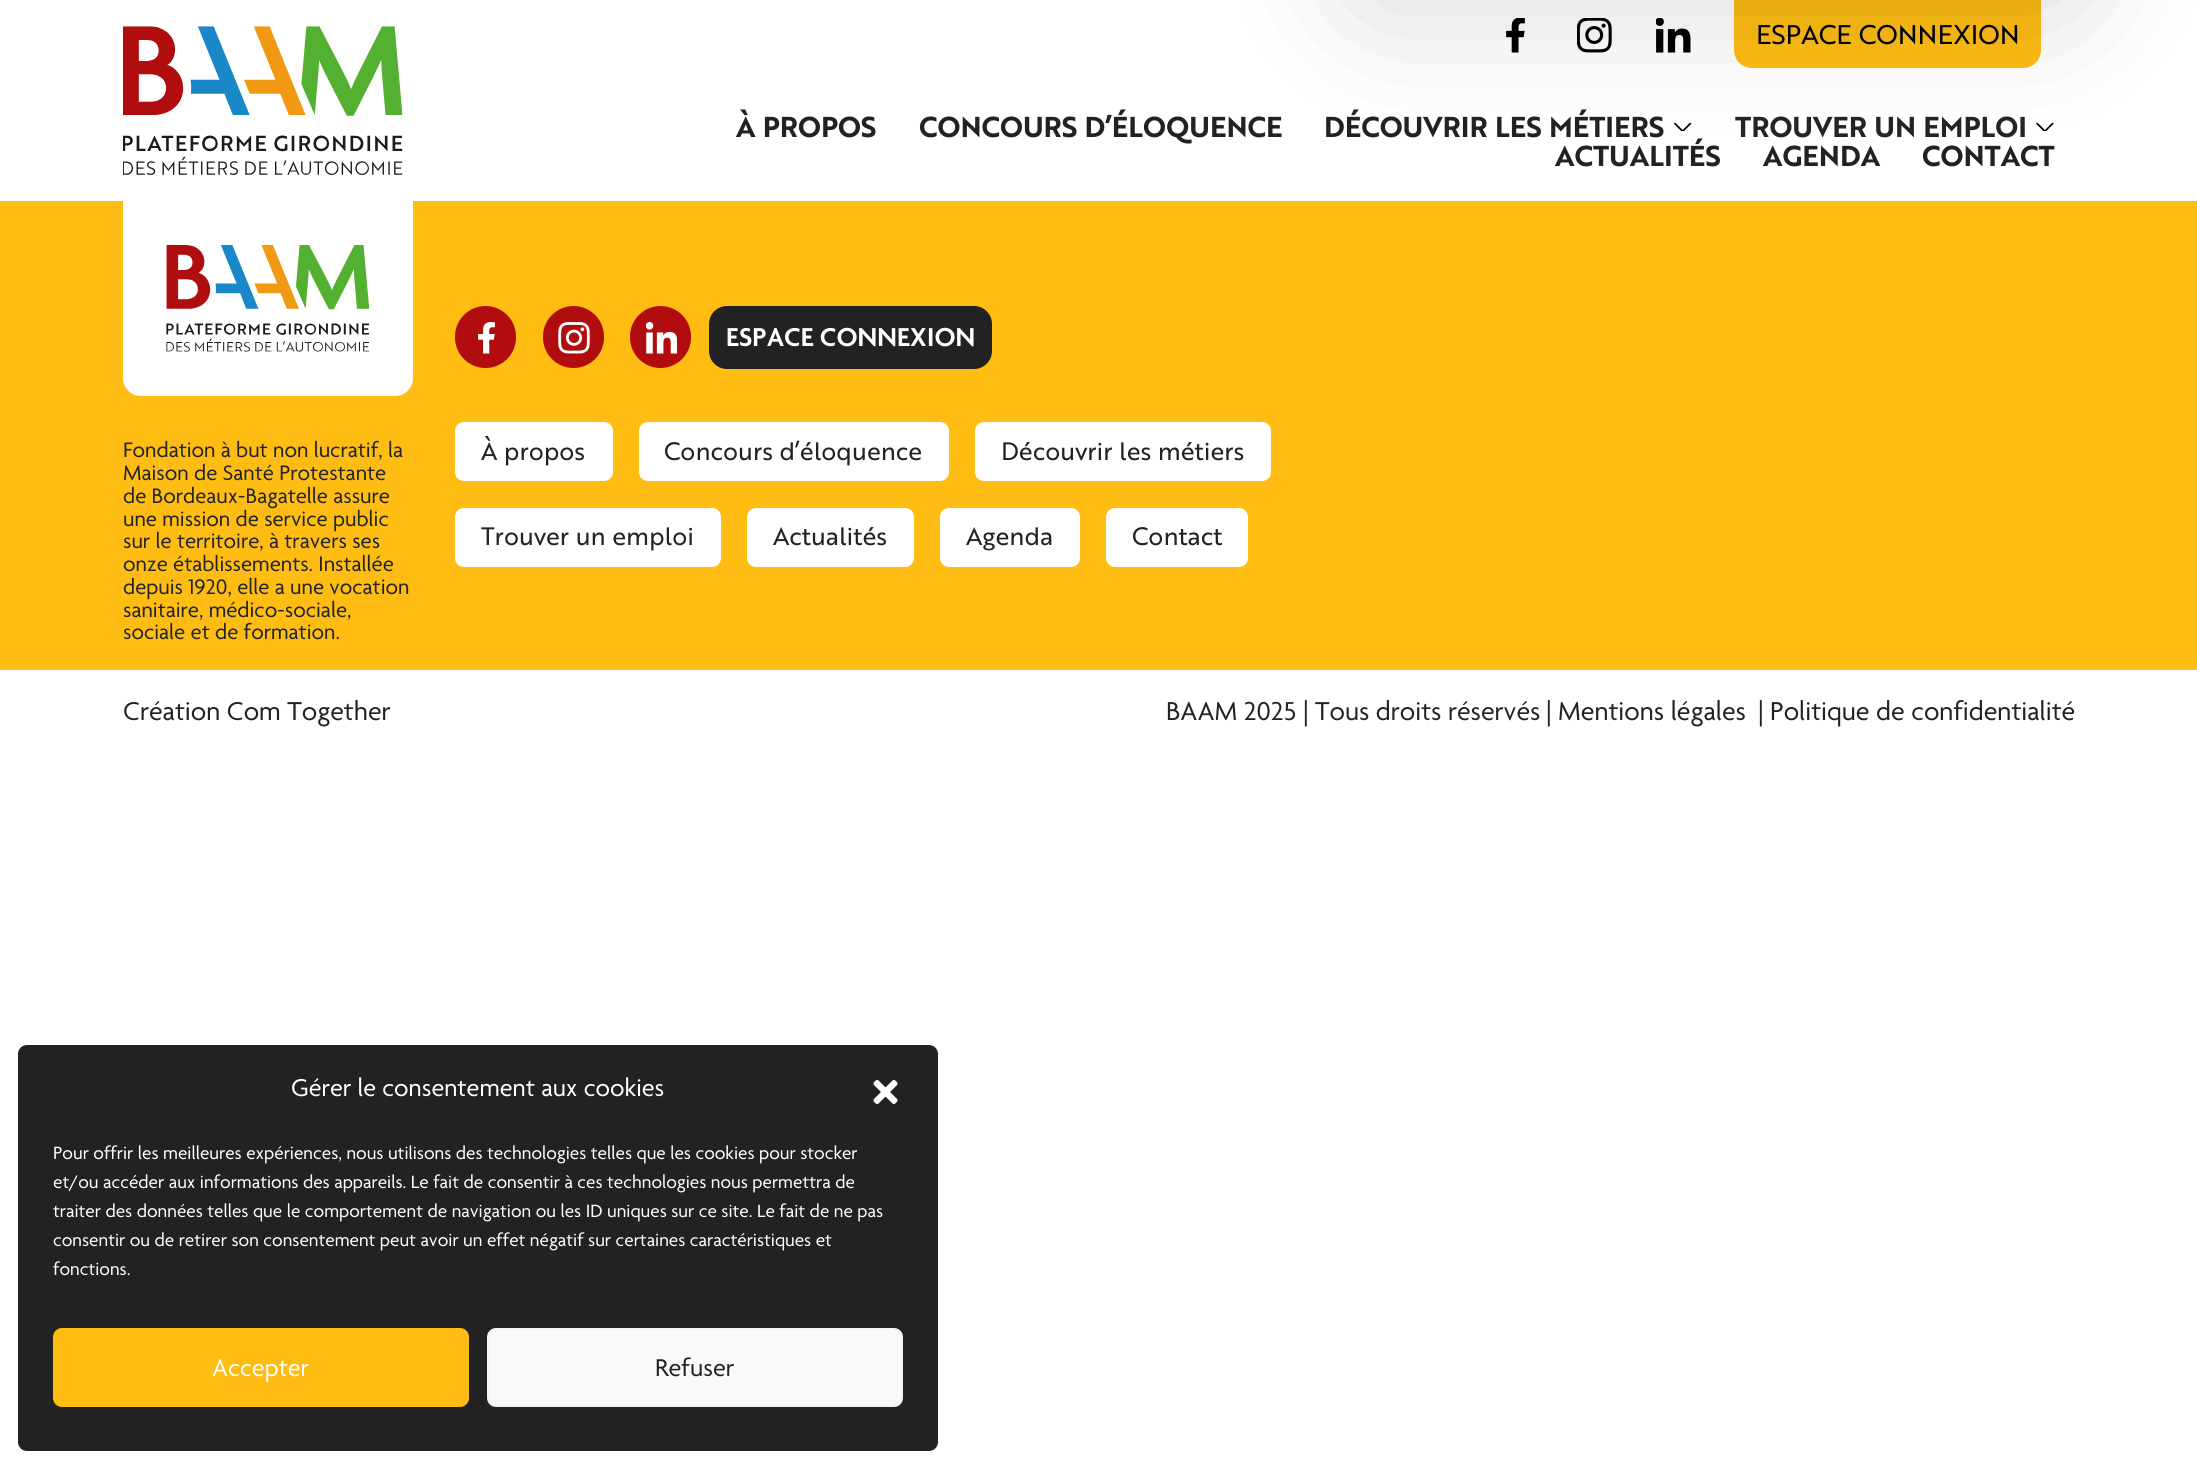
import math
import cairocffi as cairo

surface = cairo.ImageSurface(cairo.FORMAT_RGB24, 2197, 1467)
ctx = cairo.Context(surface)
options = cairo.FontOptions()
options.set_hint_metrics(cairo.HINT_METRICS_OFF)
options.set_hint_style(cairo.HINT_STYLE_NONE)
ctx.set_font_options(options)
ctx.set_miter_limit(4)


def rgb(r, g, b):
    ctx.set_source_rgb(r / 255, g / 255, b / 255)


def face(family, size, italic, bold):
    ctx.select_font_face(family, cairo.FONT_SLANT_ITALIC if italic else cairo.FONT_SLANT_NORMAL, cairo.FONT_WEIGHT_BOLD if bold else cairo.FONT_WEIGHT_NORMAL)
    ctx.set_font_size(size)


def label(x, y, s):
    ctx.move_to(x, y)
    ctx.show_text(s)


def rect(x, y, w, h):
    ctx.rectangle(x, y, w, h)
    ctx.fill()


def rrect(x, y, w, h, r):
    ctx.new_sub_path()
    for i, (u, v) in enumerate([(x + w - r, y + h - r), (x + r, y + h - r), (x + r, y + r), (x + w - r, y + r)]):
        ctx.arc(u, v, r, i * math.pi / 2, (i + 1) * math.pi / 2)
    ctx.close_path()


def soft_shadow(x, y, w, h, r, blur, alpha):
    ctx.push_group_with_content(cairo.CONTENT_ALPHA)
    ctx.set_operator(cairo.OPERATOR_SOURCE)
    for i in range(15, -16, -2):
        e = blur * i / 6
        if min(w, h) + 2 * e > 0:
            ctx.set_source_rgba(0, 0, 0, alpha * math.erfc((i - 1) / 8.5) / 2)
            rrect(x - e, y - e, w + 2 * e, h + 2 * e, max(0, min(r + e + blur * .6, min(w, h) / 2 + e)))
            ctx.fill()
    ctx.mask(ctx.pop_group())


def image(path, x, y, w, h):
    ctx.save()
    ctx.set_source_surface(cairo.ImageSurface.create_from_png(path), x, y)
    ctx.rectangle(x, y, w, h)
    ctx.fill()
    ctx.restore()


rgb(255, 255, 255)
ctx.paint()
image('image0.png', 123, 26, 280, 149)
image('image1.png', 1506, 18, 19, 35)
image('image2.png', 1577, 18, 35, 35)
image('image3.png', 1656, 18, 35, 35)
rgb(255, 189, 20)
ctx.new_path()
ctx.move_to(1734, 0)
ctx.line_to(2041, 0)
ctx.line_to(2041, 50)
ctx.curve_to(2041, 60, 2033, 68, 2023, 68)
ctx.line_to(1752, 68)
ctx.curve_to(1742, 68, 1734, 60, 1734, 50)
ctx.close_path()
ctx.fill()
image('image4.png', 1673, 123, 19, 8)
image('image5.png', 2036, 123, 18, 8)
rect(0, 201, 2197, 469)
rgb(0, 0, 0)
soft_shadow(1358, -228, 718, 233, 18, 70, 0.16)
face('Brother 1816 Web', 26.25, 0, 0)
rgb(0, 0, 0)
label(1756, 44, 'ESPACE CONNEXION')
face('Brother 1816 Web', 28, 0, 1)
rgb(34, 34, 34)
label(736, 137, 'À PROPOS')
label(919, 137, 'CONCOURS D’ÉLOQUENCE')
label(1324, 137, 'DÉCOUVRIR LES MÉTIERS')
rgb(33, 37, 41)
label(1735, 137, 'TROUVER UN EMPLOI')
rgb(34, 34, 34)
label(1555, 166, 'ACTUALITÉS')
label(1763, 166, 'AGENDA')
label(1922, 166, 'CONTACT')
rgb(255, 255, 255)
ctx.new_path()
ctx.move_to(123, 201)
ctx.line_to(413, 201)
ctx.line_to(413, 378)
ctx.curve_to(413, 388, 405, 396, 395, 396)
ctx.line_to(141, 396)
ctx.curve_to(131, 396, 123, 388, 123, 378)
ctx.close_path()
ctx.fill()
image('image6.png', 166, 245, 203, 107)
face('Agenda', 22.75, 0, 0)
rgb(33, 37, 41)
label(123, 457, 'Fondation à but non lucratif, la')
label(123, 480, 'Maison de Santé Protestante')
label(123, 503, 'de Bordeaux-Bagatelle assure')
label(123, 526, 'une mission de service public')
label(123, 548, 'sur le territoire, à travers ses')
label(123, 571, 'onze établissements. Installée')
label(123, 594, 'depuis 1920, elle a une vocation')
label(123, 617, 'sanitaire, médico-sociale,')
label(123, 639, 'sociale et de formation.')
rgb(177, 13, 15)
rrect(455, 306, 61, 62, 30.5)
ctx.fill()
image('image7.png', 478, 322, 17, 32)
rrect(543, 306, 61, 62, 30.5)
ctx.fill()
image('image8.png', 558, 322, 32, 32)
rrect(630, 306, 61, 62, 30.5)
ctx.fill()
image('image9.png', 646, 322, 31, 32)
rgb(34, 34, 34)
rrect(709, 306, 283, 63, 18)
ctx.fill()
face('Agenda SemiBold', 28, 0, 0)
rgb(255, 255, 255)
label(726, 346, 'ESPACE CONNEXION')
rrect(455, 422, 158, 59, 9)
ctx.fill()
face('Brother 1816 Web', 24.5, 0, 0)
rgb(34, 34, 34)
label(481, 460, 'À propos')
rgb(255, 255, 255)
rrect(639, 422, 310, 59, 9)
ctx.fill()
rgb(34, 34, 34)
label(664, 460, 'Concours d’éloquence')
rgb(255, 255, 255)
rrect(975, 422, 296, 59, 9)
ctx.fill()
rgb(34, 34, 34)
label(1001, 460, 'Découvrir les métiers')
rgb(255, 255, 255)
rrect(455, 508, 266, 59, 9)
ctx.fill()
rgb(33, 37, 41)
label(481, 545, 'Trouver un emploi')
rgb(255, 255, 255)
rrect(747, 508, 167, 59, 9)
ctx.fill()
rgb(34, 34, 34)
label(773, 545, 'Actualités')
rgb(255, 255, 255)
rrect(940, 508, 140, 59, 9)
ctx.fill()
rgb(34, 34, 34)
label(966, 545, 'Agenda')
rgb(255, 255, 255)
rrect(1106, 508, 142, 59, 9)
ctx.fill()
rgb(34, 34, 34)
label(1132, 545, 'Contact')
face('Agenda', 28, 0, 0)
label(123, 720, 'Création Com Together')
rgb(33, 37, 41)
label(1166, 720, 'BAAM 2025')
label(1303, 720, '|')
label(1315, 720, 'Tous droits réservés')
label(1546, 720, '|')
rgb(34, 34, 34)
label(1558, 720, 'Mentions légales')
rgb(33, 37, 41)
label(1758, 720, '|')
rgb(34, 34, 34)
label(1770, 720, 'Politique de confidentialité')
rrect(18, 1045, 920, 406, 9)
ctx.fill()
face('Agenda', 26.25, 0, 0)
rgb(255, 255, 255)
label(291, 1096, 'Gérer le consentement aux cookies')
image('image10.png', 873, 1080, 25, 24)
face('Agenda', 19.25, 0, 0)
label(53, 1159, 'Pour offrir les meilleures expériences, nous utilisons des technologies telles que les cookies pour stocker')
label(53, 1188, 'et/ou accéder aux informations des appareils. Le fait de consentir à ces technologies nous permettra de')
label(53, 1217, 'traiter des données telles que le comportement de navigation ou les ID uniques sur ce site. Le fait de ne pas')
label(53, 1246, 'consentir ou de retirer son consentement peut avoir un effet négatif sur certaines caractéristiques et')
label(53, 1275, 'fonctions.')
rgb(255, 189, 20)
rrect(54, 1329, 414, 77, 8)
ctx.fill_preserve()
ctx.stroke()
face('Agenda', 26.25, 0, 0)
rgb(255, 255, 255)
label(212, 1376, 'Accepter')
rgb(249, 249, 249)
rrect(488, 1329, 414, 77, 8)
ctx.fill_preserve()
rgb(242, 242, 242)
ctx.stroke()
rgb(34, 34, 34)
label(655, 1376, 'Refuser')
surface.write_to_png('render.png')
